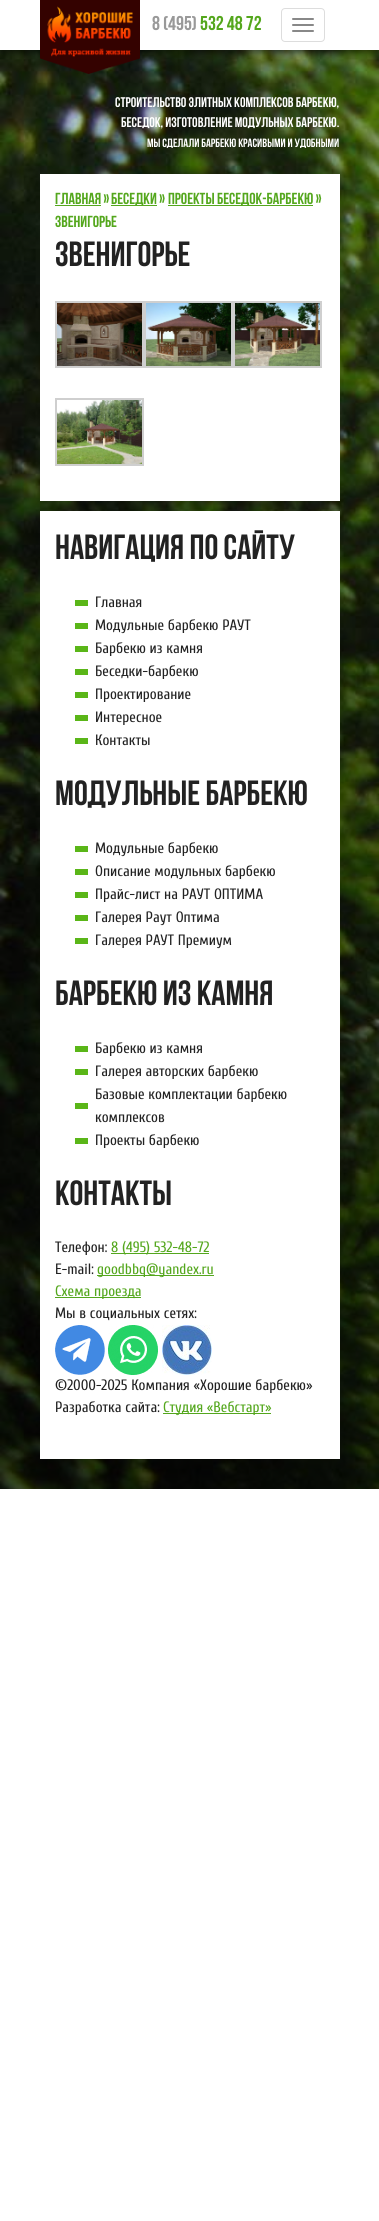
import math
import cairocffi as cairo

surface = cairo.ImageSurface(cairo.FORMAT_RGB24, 379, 2221)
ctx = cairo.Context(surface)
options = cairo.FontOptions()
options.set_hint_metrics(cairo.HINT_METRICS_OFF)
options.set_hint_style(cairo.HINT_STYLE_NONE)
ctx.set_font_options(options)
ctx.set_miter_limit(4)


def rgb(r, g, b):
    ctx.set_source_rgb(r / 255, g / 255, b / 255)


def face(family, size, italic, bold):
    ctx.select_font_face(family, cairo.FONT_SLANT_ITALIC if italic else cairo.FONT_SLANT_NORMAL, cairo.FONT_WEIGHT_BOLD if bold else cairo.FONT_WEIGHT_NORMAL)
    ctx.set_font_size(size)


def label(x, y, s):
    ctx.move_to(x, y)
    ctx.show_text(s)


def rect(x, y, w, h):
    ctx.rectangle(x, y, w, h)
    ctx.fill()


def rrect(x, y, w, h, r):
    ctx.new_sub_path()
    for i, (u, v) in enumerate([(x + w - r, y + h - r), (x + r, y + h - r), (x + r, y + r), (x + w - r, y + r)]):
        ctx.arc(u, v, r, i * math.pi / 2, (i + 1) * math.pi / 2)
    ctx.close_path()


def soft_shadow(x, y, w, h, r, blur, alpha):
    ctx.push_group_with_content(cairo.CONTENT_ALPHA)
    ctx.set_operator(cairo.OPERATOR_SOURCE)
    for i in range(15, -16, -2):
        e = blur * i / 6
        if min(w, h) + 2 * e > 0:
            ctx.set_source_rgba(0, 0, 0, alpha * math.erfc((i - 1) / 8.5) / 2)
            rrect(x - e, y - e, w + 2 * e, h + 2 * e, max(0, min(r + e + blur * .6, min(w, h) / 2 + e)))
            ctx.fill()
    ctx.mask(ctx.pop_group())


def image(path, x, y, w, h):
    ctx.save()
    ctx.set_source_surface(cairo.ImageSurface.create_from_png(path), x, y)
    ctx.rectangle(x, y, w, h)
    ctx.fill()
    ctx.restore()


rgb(255, 255, 255)
ctx.paint()
image('image0.png', 0, 50, 379, 1439)
rgb(0, 0, 0)
soft_shadow(0, 3, 379, 50, 0, 3.5, 0.6)
rgb(255, 255, 255)
rect(0, 0, 379, 50)
image('image1.png', 40, 0, 100, 74)
face('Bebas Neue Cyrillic', 20, 0, 0)
rgb(153, 153, 153)
label(152, 30, '8 (495)')
rgb(84, 167, 29)
label(200, 30, '532 48 72')
rrect(281.5, 8.5, 43, 33, 3.5)
rgb(221, 221, 221)
ctx.set_line_width(1)
ctx.stroke()
rgb(136, 136, 136)
rrect(292, 18, 22, 2, 1)
ctx.fill()
rrect(292, 24, 22, 2, 1)
ctx.fill()
rrect(292, 30, 22, 2, 1)
ctx.fill()
face('Bebas Neue Cyrillic', 14, 0, 0)
rgb(255, 255, 255)
label(115, 107, 'Строительство элитных комплексов барбекю,')
label(121, 127, 'беседок, изготовление модульных барбекю.')
face('Bebas Neue Cyrillic', 12, 0, 0)
label(147, 147, 'Мы сделали барбекю красивыми и удобными')
rect(40, 174, 300, 327)
face('Bebas Neue Cyrillic', 16, 0, 0)
rgb(84, 167, 29)
label(55, 204, 'Главная »')
rect(55, 205, 46, 1)
rect(111, 205, 46, 1)
label(111, 204, 'Беседки »')
rect(168, 205, 145, 1)
label(168, 204, 'Проекты беседок-барбекю »')
label(55, 227, 'Звенигорье')
face('Bebas Neue Cyrillic', 35, 0, 0)
rgb(34, 34, 34)
label(55, 266, 'Звенигорье')
ctx.rectangle(56, 302, 87, 65)
rgb(207, 207, 207)
ctx.set_line_width(2)
ctx.stroke()
image('image2.png', 57, 303, 85, 63)
ctx.rectangle(145, 302, 87, 65)
ctx.stroke()
image('image3.png', 146, 303, 85, 63)
ctx.rectangle(234, 302, 87, 65)
ctx.stroke()
image('image4.png', 235, 303, 85, 63)
ctx.rectangle(56, 399, 87, 66)
ctx.stroke()
image('image5.png', 57, 400, 85, 64)
rgb(255, 255, 255)
rect(40, 511, 300, 948)
rgb(34, 34, 34)
label(55, 559, 'Навигация по сайту')
rgb(90, 182, 24)
rect(75, 600, 13, 6)
face('Cuprum', 15, 0, 0)
rgb(34, 34, 34)
label(95, 607, 'Главная')
rgb(90, 182, 24)
rect(75, 623, 13, 6)
rgb(34, 34, 34)
label(95, 630, 'Модульные барбекю РАУТ')
rgb(90, 182, 24)
rect(75, 646, 13, 6)
rgb(34, 34, 34)
label(95, 653, 'Барбекю из камня')
rgb(90, 182, 24)
rect(75, 669, 13, 6)
rgb(34, 34, 34)
label(95, 676, 'Беседки-барбекю')
rgb(90, 182, 24)
rect(75, 692, 13, 6)
rgb(34, 34, 34)
label(95, 699, 'Проектирование')
rgb(90, 182, 24)
rect(75, 715, 13, 6)
rgb(34, 34, 34)
label(95, 722, 'Интересное')
rgb(90, 182, 24)
rect(75, 738, 13, 6)
rgb(34, 34, 34)
label(95, 745, 'Контакты')
face('Bebas Neue Cyrillic', 35, 0, 0)
label(55, 805, 'Модульные барбекю')
rgb(90, 182, 24)
rect(75, 846, 13, 6)
face('Cuprum', 15, 0, 0)
rgb(34, 34, 34)
label(95, 853, 'Модульные барбекю')
rgb(90, 182, 24)
rect(75, 869, 13, 6)
rgb(34, 34, 34)
label(95, 876, 'Описание модульных барбекю')
rgb(90, 182, 24)
rect(75, 892, 13, 6)
rgb(34, 34, 34)
label(95, 899, 'Прайс-лист на РАУТ ОПТИМА')
rgb(90, 182, 24)
rect(75, 915, 13, 6)
rgb(34, 34, 34)
label(95, 922, 'Галерея Раут Оптима')
rgb(90, 182, 24)
rect(75, 938, 13, 6)
rgb(34, 34, 34)
label(95, 945, 'Галерея РАУТ Премиум')
face('Bebas Neue Cyrillic', 35, 0, 0)
label(55, 1005, 'Барбекю из камня')
rgb(90, 182, 24)
rect(75, 1046, 13, 6)
face('Cuprum', 15, 0, 0)
rgb(34, 34, 34)
label(95, 1053, 'Барбекю из камня')
rgb(90, 182, 24)
rect(75, 1069, 13, 6)
rgb(34, 34, 34)
label(95, 1076, 'Галерея авторских барбекю')
rgb(90, 182, 24)
rect(75, 1103, 13, 6)
rgb(34, 34, 34)
label(95, 1099, 'Базовые комплектации барбекю')
label(95, 1122, 'комплексов')
rgb(90, 182, 24)
rect(75, 1138, 13, 6)
rgb(34, 34, 34)
label(95, 1145, 'Проекты барбекю')
face('Bebas Neue Cyrillic', 35, 0, 0)
label(55, 1205, 'Контакты')
face('Cuprum', 15, 0, 0)
label(55, 1252, 'Телефон:')
rgb(84, 167, 29)
rect(111, 1253, 98, 1)
label(111, 1252, '8 (495) 532-48-72')
rgb(34, 34, 34)
label(55, 1274, 'E-mail:')
rgb(84, 167, 29)
rect(97, 1275, 117, 1)
label(97, 1274, 'goodbbq@yandex.ru')
rect(55, 1297, 86, 1)
label(55, 1296, 'Схема проезда')
rgb(34, 34, 34)
label(55, 1318, 'Мы в социальных сетях:')
image('image6.png', 55, 1325, 50, 50)
image('image7.png', 108, 1325, 50, 50)
image('image8.png', 162, 1325, 50, 50)
label(55, 1390, '©2000-2025 Компания «Хорошие барбекю»')
label(55, 1412, 'Разработка сайта:')
rgb(84, 167, 29)
rect(163, 1413, 108, 1)
label(163, 1412, 'Студия «Вебстарт»')
surface.write_to_png('render.png')
